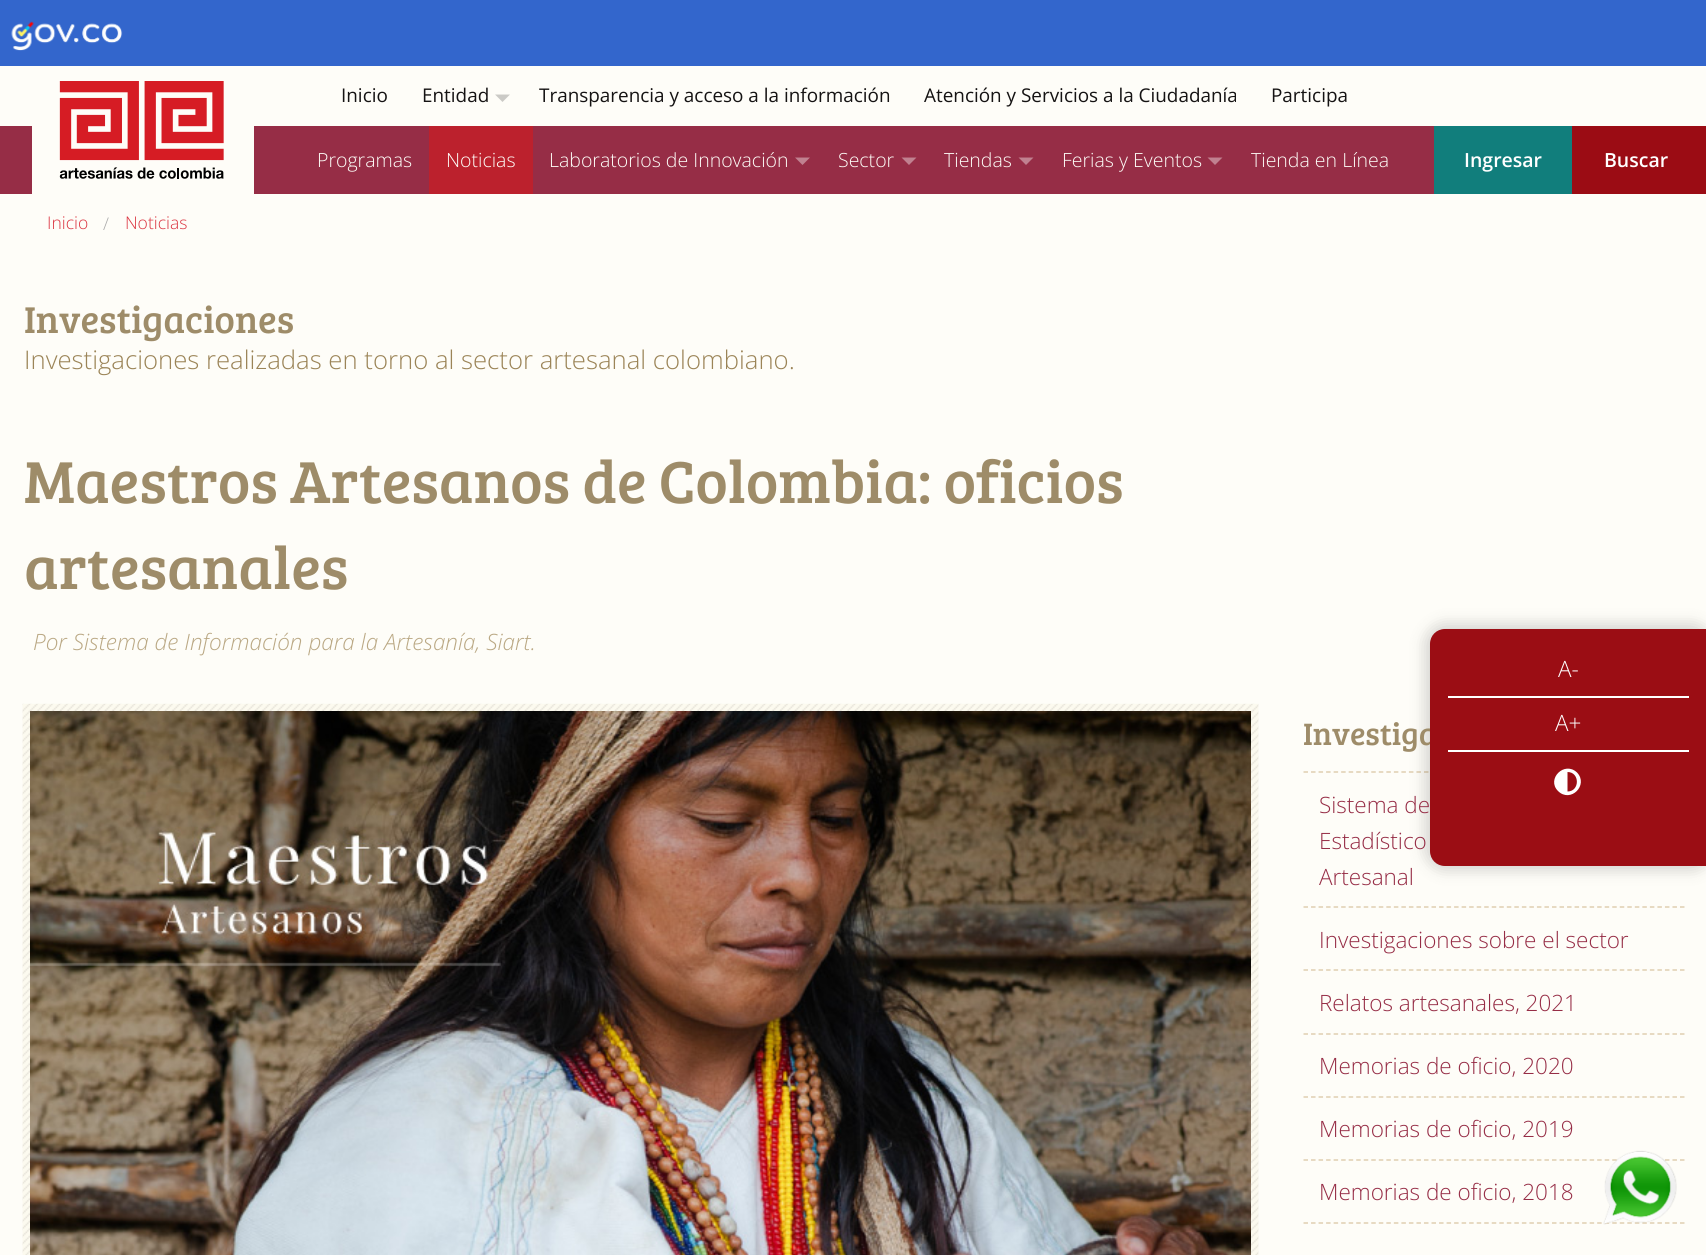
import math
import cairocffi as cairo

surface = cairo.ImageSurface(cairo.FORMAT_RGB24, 1706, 1255)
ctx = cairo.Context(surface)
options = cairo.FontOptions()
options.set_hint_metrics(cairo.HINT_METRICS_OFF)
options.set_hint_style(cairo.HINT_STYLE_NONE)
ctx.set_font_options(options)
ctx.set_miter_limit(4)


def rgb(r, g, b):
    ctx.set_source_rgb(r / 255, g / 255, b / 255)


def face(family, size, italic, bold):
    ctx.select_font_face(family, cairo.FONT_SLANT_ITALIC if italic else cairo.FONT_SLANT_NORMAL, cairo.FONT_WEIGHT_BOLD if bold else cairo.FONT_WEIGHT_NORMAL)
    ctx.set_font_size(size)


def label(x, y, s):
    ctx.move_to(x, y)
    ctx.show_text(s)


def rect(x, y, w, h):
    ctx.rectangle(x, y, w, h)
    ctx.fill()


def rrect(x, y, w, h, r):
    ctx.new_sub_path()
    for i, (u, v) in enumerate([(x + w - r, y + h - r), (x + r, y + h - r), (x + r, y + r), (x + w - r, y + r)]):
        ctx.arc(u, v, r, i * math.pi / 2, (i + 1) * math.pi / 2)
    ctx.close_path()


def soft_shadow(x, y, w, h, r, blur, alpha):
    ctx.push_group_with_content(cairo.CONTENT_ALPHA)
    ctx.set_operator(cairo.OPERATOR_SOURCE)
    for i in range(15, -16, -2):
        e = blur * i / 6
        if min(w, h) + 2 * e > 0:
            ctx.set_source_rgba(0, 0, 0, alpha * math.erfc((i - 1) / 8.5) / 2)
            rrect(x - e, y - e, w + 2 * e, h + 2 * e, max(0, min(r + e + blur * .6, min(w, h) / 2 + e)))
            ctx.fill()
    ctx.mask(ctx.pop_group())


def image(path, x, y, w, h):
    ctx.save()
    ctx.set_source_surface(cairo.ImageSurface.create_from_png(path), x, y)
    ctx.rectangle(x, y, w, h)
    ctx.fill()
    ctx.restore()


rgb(254, 253, 248)
ctx.paint()
rgb(51, 102, 204)
rect(0, 0, 1706, 66)
image('image0.png', 11, 21, 112, 30)
rgb(150, 45, 70)
rect(0, 126, 1434, 68)
rgb(254, 253, 248)
rect(32, 126, 222, 68)
image('image1.png', 59, 81, 165, 98)
face('Open Sans', 18.9, 0, 0)
rgb(21, 19, 19)
label(341, 102, 'Inicio')
label(422, 102, 'Entidad')
rgb(203, 202, 198)
ctx.new_path()
ctx.move_to(495, 94.5)
ctx.line_to(510, 94.5)
ctx.line_to(502.5, 102)
ctx.close_path()
ctx.fill()
rgb(21, 19, 19)
label(539, 102, 'Transparencia y acceso a la información')
label(924, 102, 'Atención y Servicios a la Ciudadanía')
label(1271, 102, 'Participa')
face('Open Sans Light', 19.5, 0, 0)
rgb(254, 253, 248)
label(317, 167, 'Programas')
rgb(188, 33, 45)
rect(429, 126, 104, 68)
rgb(254, 253, 248)
label(446, 167, 'Noticias')
label(549, 167, 'Laboratorios de Innovación')
rgb(192, 129, 144)
ctx.new_path()
ctx.move_to(795, 157.5)
ctx.line_to(810, 157.5)
ctx.line_to(802.5, 165)
ctx.close_path()
ctx.fill()
rgb(254, 253, 248)
label(838, 167, 'Sector')
rgb(192, 129, 144)
ctx.new_path()
ctx.move_to(901.5, 157.5)
ctx.line_to(916.5, 157.5)
ctx.line_to(909, 165)
ctx.close_path()
ctx.fill()
rgb(254, 253, 248)
label(944, 167, 'Tiendas')
rgb(192, 129, 144)
ctx.new_path()
ctx.move_to(1018.5, 157.5)
ctx.line_to(1033.5, 157.5)
ctx.line_to(1026, 165)
ctx.close_path()
ctx.fill()
rgb(254, 253, 248)
label(1062, 167, 'Ferias y Eventos')
rgb(192, 129, 144)
ctx.new_path()
ctx.move_to(1207.5, 157.5)
ctx.line_to(1222.5, 157.5)
ctx.line_to(1215, 165)
ctx.close_path()
ctx.fill()
rgb(254, 253, 248)
label(1251, 167, 'Tienda en Línea')
rgb(17, 126, 124)
rect(1434, 126, 138, 68)
face('Open Sans SemiBold', 19.5, 0, 0)
rgb(255, 255, 255)
label(1464, 167, 'Ingresar')
rgb(155, 12, 20)
rect(1572, 126, 134, 68)
rgb(255, 255, 255)
label(1604, 167, 'Buscar')
face('Open Sans Light', 17.5, 0, 0)
rgb(219, 53, 65)
label(47, 229, 'Inicio')
rgb(170, 170, 170)
label(103, 230, '/')
rgb(219, 53, 65)
label(125, 229, 'Noticias')
face('Bree Serif', 38.5, 0, 0)
rgb(158, 140, 105)
label(24, 333, 'Investigaciones')
face('Open Sans Light', 25.7, 0, 0)
rgb(155, 132, 87)
label(24, 369, 'Investigaciones realizadas en torno al sector artesanal colombiano.')
face('Bree Serif', 61.1, 0, 0)
rgb(158, 140, 105)
label(24, 503, 'Maestros Artesanos de Colombia: oficios')
label(24, 589, 'artesanales')
face('Open Sans Light', 22.5, 1, 0)
rgb(186, 168, 132)
label(33, 650, 'Por Sistema de Información para la Artesanía, Siart.')
ctx.new_path()
ctx.move_to(1303.5, 772)
ctx.line_to(1684.5, 772)
rgb(223, 206, 177)
ctx.set_line_width(1.5)
ctx.set_dash([4.5, 3.03])
ctx.stroke()
rgb(0, 0, 0)
soft_shadow(1425, 624, 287, 246, 20, 7.5, 0.17)
face('Bree Serif', 32, 0, 0)
rgb(158, 140, 105)
label(1303, 745, 'Investiga')
rgb(155, 13, 20)
ctx.new_path()
ctx.move_to(1445, 629)
ctx.line_to(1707, 629)
ctx.line_to(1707, 866)
ctx.line_to(1445, 866)
ctx.curve_to(1436.5, 866, 1430, 859.5, 1430, 851)
ctx.line_to(1430, 644)
ctx.curve_to(1430, 635.5, 1436.5, 629, 1445, 629)
ctx.close_path()
ctx.fill()
face('Open Sans Light', 22.5, 0, 0)
rgb(255, 255, 255)
label(1558, 677, 'A-')
rect(1448, 696, 241, 2)
label(1555, 731, 'A+')
rect(1448, 750, 241, 2)
ctx.new_path()
ctx.move_to(1558, 791)
ctx.curve_to(1546, 779, 1564.5, 760.5, 1577, 772.5)
ctx.curve_to(1589, 785, 1570.5, 803.5, 1558, 791)
ctx.close_path()
ctx.move_to(1567.5, 791.5)
ctx.curve_to(1580, 791.5, 1580, 772, 1567.5, 772)
ctx.close_path()
ctx.fill()
image('image2.png', 22, 703, 1237, 552)
image('image3.png', 30, 711, 1221, 544)
rgb(150, 45, 70)
label(1319, 813, 'Sistema de')
label(1319, 849, 'Estadístico')
label(1319, 885, 'Artesanal')
ctx.new_path()
ctx.move_to(1303.5, 907)
ctx.line_to(1684.5, 907)
rgb(223, 206, 177)
ctx.stroke()
rgb(150, 45, 70)
label(1319, 948, 'Investigaciones sobre el sector')
ctx.new_path()
ctx.move_to(1303.5, 970)
ctx.line_to(1684.5, 970)
rgb(223, 206, 177)
ctx.stroke()
rgb(150, 45, 70)
label(1319, 1011, 'Relatos artesanales, 2021')
ctx.new_path()
ctx.move_to(1303.5, 1034)
ctx.line_to(1684.5, 1034)
rgb(223, 206, 177)
ctx.stroke()
rgb(150, 45, 70)
label(1319, 1074, 'Memorias de oficio, 2020')
ctx.new_path()
ctx.move_to(1303.5, 1097)
ctx.line_to(1684.5, 1097)
rgb(223, 206, 177)
ctx.stroke()
rgb(150, 45, 70)
label(1319, 1137, 'Memorias de oficio, 2019')
ctx.new_path()
ctx.move_to(1303.5, 1160)
ctx.line_to(1684.5, 1160)
rgb(223, 206, 177)
ctx.stroke()
rgb(150, 45, 70)
label(1319, 1200, 'Memorias de oficio, 2018')
ctx.new_path()
ctx.move_to(1303.5, 1223)
ctx.line_to(1684.5, 1223)
rgb(223, 206, 177)
ctx.stroke()
image('image4.png', 1603, 1150, 74, 75)
surface.write_to_png('render.png')
